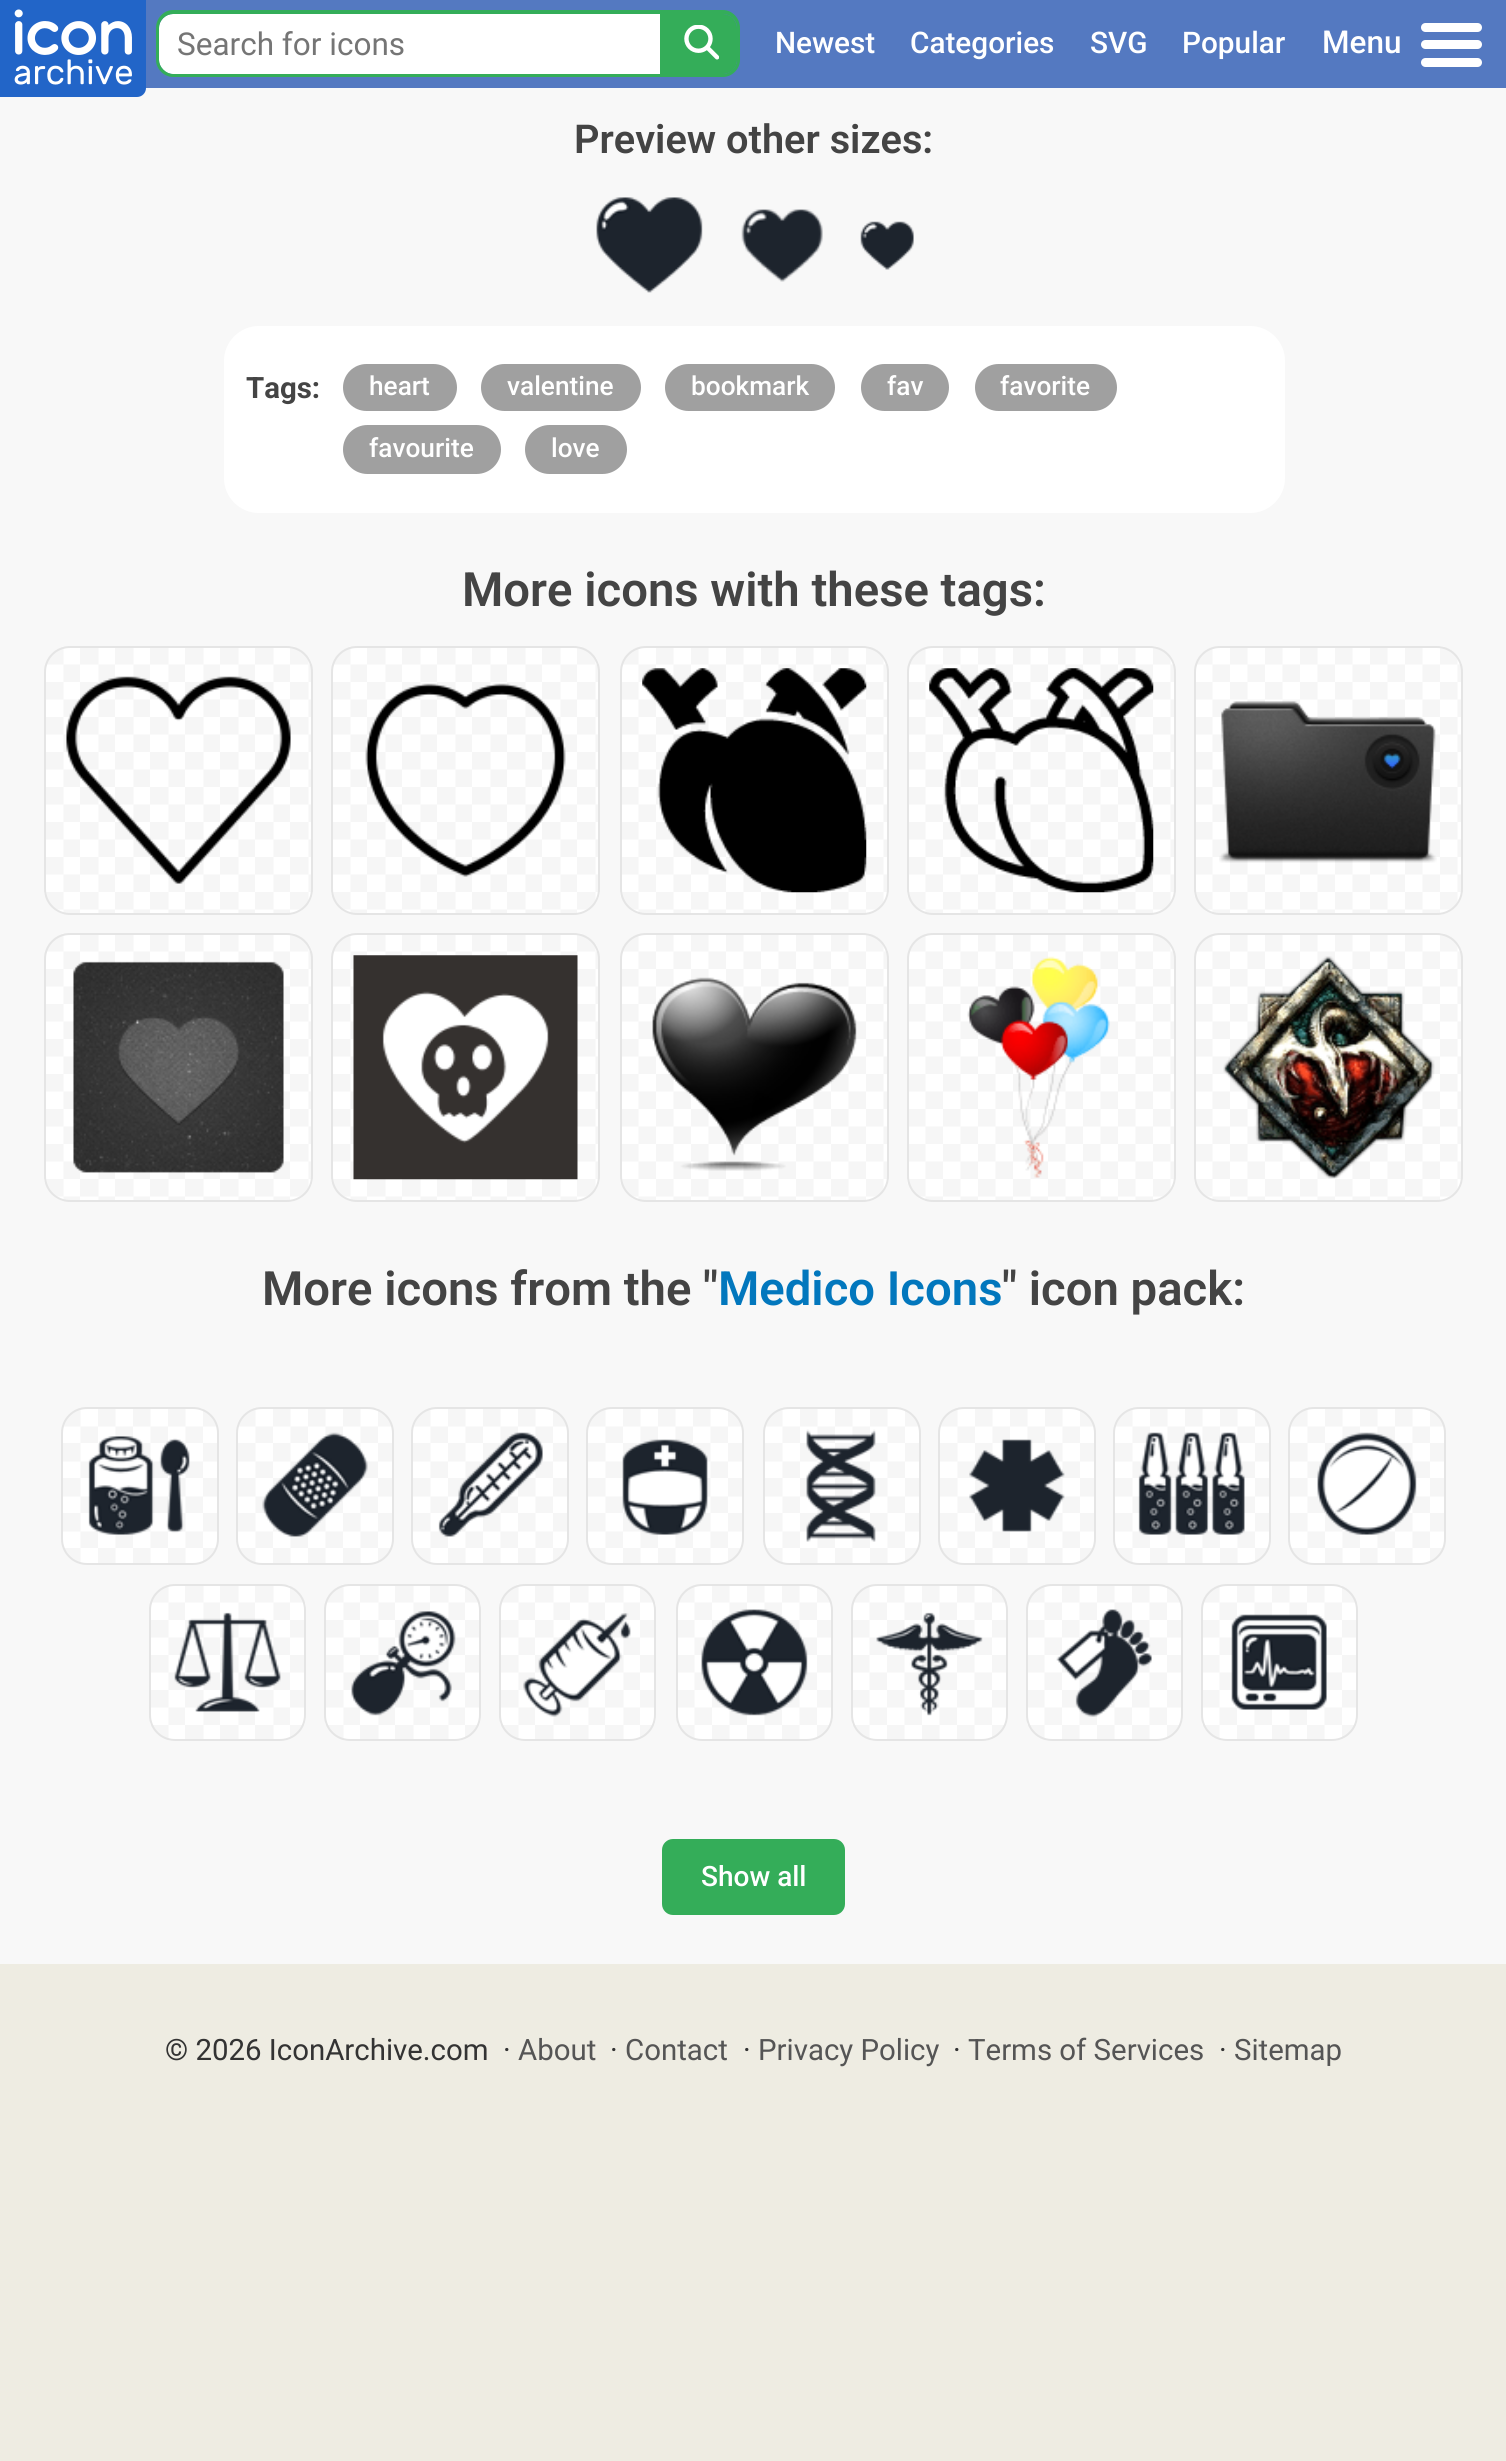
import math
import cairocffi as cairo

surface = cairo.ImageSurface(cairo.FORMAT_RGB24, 1506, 2461)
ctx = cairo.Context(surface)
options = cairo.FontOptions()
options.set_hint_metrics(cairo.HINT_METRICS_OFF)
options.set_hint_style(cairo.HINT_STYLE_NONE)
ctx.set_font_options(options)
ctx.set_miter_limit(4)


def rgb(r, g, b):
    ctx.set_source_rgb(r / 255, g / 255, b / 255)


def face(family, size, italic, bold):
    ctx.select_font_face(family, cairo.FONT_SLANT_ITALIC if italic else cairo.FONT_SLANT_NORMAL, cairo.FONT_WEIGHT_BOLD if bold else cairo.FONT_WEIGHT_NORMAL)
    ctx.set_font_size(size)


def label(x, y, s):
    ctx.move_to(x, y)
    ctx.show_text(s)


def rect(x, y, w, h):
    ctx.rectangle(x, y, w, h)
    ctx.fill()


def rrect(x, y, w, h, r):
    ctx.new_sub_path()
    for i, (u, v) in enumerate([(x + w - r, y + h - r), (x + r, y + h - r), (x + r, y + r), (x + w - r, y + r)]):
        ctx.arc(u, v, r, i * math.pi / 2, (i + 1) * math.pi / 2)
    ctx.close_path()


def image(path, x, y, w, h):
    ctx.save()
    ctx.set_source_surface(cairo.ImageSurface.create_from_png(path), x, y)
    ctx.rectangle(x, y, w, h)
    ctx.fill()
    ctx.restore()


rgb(248, 248, 248)
ctx.paint()
rgb(84, 121, 193)
rect(146, 0, 1360, 88)
image('image0.png', 0, 0, 146, 97)
rgb(255, 255, 255)
ctx.new_path()
ctx.move_to(173, 14)
ctx.line_to(660, 14)
ctx.line_to(660, 74)
ctx.line_to(173, 74)
ctx.curve_to(165.5, 74, 159, 67.5, 159, 60)
ctx.line_to(159, 28)
ctx.curve_to(159, 20.5, 165.5, 14, 173, 14)
ctx.close_path()
ctx.fill()
rgb(52, 173, 89)
ctx.set_fill_rule(cairo.FILL_RULE_EVEN_ODD)
ctx.new_path()
ctx.move_to(173, 10)
ctx.line_to(660, 10)
ctx.line_to(660, 77)
ctx.line_to(173, 77)
ctx.curve_to(164, 77, 156, 69, 156, 60)
ctx.line_to(156, 28)
ctx.curve_to(156, 18, 164, 10, 173, 10)
ctx.close_path()
ctx.move_to(173, 14)
ctx.line_to(660, 14)
ctx.line_to(660, 74)
ctx.line_to(173, 74)
ctx.curve_to(166, 74, 159, 67, 159, 60)
ctx.line_to(159, 28)
ctx.curve_to(159, 20, 166, 14, 173, 14)
ctx.close_path()
ctx.fill()
face('Roboto', 31.5, 0, 0)
rgb(117, 117, 117)
label(177, 55, 'Search for icons')
rgb(52, 173, 89)
ctx.new_path()
ctx.move_to(660, 14)
ctx.line_to(723, 14)
ctx.curve_to(730.5, 14, 737, 20.5, 737, 28)
ctx.line_to(737, 60)
ctx.curve_to(737, 67.5, 730.5, 74, 723, 74)
ctx.line_to(660, 74)
ctx.close_path()
ctx.fill()
ctx.new_path()
ctx.move_to(660, 10)
ctx.line_to(723, 10)
ctx.curve_to(732, 10, 740, 18, 740, 28)
ctx.line_to(740, 60)
ctx.curve_to(740, 69, 732, 77, 723, 77)
ctx.line_to(660, 77)
ctx.close_path()
ctx.move_to(660, 14)
ctx.line_to(723, 14)
ctx.curve_to(730, 14, 737, 20, 737, 28)
ctx.line_to(737, 60)
ctx.curve_to(737, 67, 730, 74, 723, 74)
ctx.line_to(660, 74)
ctx.close_path()
ctx.fill()
image('image1.png', 684, 25, 35, 35)
face('Roboto Medium', 29.75, 0, 0)
rgb(255, 255, 255)
label(775, 53, 'Newest')
label(910, 53, 'Categories')
label(1090, 53, 'SVG')
label(1182, 53, 'Popular')
face('Roboto Medium', 31.5, 0, 0)
label(1322, 53, 'Menu')
rrect(1421, 23, 61, 9, 4.5)
ctx.fill()
rrect(1421, 40, 61, 9, 4.5)
ctx.fill()
rrect(1421, 58, 61, 9, 4.5)
ctx.fill()
face('Roboto SemiBold', 39.75, 0, 0)
rgb(68, 68, 68)
label(574, 153, 'Preview other sizes:')
image('image2.png', 596, 197, 107, 96)
image('image3.png', 741, 209, 82, 73)
image('image4.png', 860, 221, 54, 49)
rgb(255, 255, 255)
rrect(224, 326, 1061, 187, 35)
ctx.fill()
face('Roboto', 29.4, 0, 1)
rgb(68, 68, 68)
label(246, 398, 'Tags:')
rgb(160, 160, 160)
rrect(343, 364, 114, 47, 23.5)
ctx.fill()
face('Roboto Medium', 26.25, 0, 0)
rgb(255, 255, 255)
label(369, 395, 'heart')
rgb(160, 160, 160)
rrect(481, 364, 160, 47, 23.5)
ctx.fill()
rgb(255, 255, 255)
label(507, 395, 'valentine')
rgb(160, 160, 160)
rrect(665, 364, 170, 47, 23.5)
ctx.fill()
rgb(255, 255, 255)
label(691, 395, 'bookmark')
rgb(160, 160, 160)
rrect(861, 364, 88, 47, 23.5)
ctx.fill()
rgb(255, 255, 255)
label(887, 395, 'fav')
rgb(160, 160, 160)
rrect(975, 364, 142, 47, 23.5)
ctx.fill()
rgb(255, 255, 255)
label(1000, 395, 'favorite')
rgb(160, 160, 160)
rrect(343, 425, 158, 49, 24.5)
ctx.fill()
rgb(255, 255, 255)
label(369, 457, 'favourite')
rgb(160, 160, 160)
rrect(525, 425, 102, 49, 24.5)
ctx.fill()
rgb(255, 255, 255)
label(551, 457, 'love')
face('Roboto SemiBold', 47.25, 0, 0)
rgb(68, 68, 68)
label(462, 606, 'More icons with these tags:')
image('image5.png', 44, 646, 269, 269)
rrect(45, 647, 267, 267, 25)
rgb(229, 229, 229)
ctx.stroke()
image('image6.png', 66, 676, 225, 208)
image('image5.png', 331, 646, 269, 269)
rrect(332, 647, 267, 267, 25)
ctx.stroke()
image('image7.png', 365, 683, 201, 194)
image('image8.png', 620, 646, 269, 269)
rrect(621, 647, 267, 267, 25)
ctx.stroke()
image('image9.png', 642, 668, 225, 225)
image('image8.png', 907, 646, 269, 269)
rrect(908, 647, 267, 267, 25)
ctx.stroke()
image('image10.png', 929, 668, 225, 225)
image('image11.png', 1194, 646, 269, 269)
rrect(1195, 647, 267, 267, 25)
ctx.stroke()
image('image12.png', 1219, 701, 218, 162)
image('image5.png', 44, 933, 269, 269)
rrect(45, 934, 267, 267, 25)
ctx.stroke()
image('image13.png', 73, 961, 211, 212)
image('image5.png', 331, 933, 269, 269)
rrect(332, 934, 267, 267, 25)
ctx.stroke()
image('image14.png', 353, 955, 225, 225)
image('image8.png', 620, 933, 269, 269)
rrect(621, 934, 267, 267, 25)
ctx.stroke()
image('image15.png', 652, 977, 205, 194)
image('image8.png', 907, 933, 269, 269)
rrect(908, 934, 267, 267, 25)
ctx.stroke()
image('image16.png', 967, 956, 143, 222)
image('image11.png', 1194, 933, 269, 269)
rrect(1195, 934, 267, 267, 25)
ctx.stroke()
image('image17.png', 1223, 956, 212, 223)
rgb(68, 68, 68)
label(262, 1305, 'More icons from the "')
rgb(2, 119, 189)
label(718, 1305, 'Medico Icons')
rgb(68, 68, 68)
label(1002, 1305, '" icon pack:')
image('image18.png', 62, 1407, 156, 156)
rrect(62, 1408, 156, 156, 25)
rgb(229, 229, 229)
ctx.stroke()
image('image19.png', 88, 1436, 102, 99)
image('image20.png', 237, 1407, 156, 157)
rrect(237, 1408, 156, 156, 25)
ctx.stroke()
image('image21.png', 262, 1432, 106, 105)
image('image18.png', 412, 1407, 156, 156)
rrect(412, 1408, 156, 156, 25)
ctx.stroke()
image('image22.png', 438, 1432, 105, 105)
image('image23.png', 587, 1407, 156, 156)
rrect(587, 1408, 156, 156, 25)
ctx.stroke()
image('image24.png', 622, 1439, 86, 96)
image('image25.png', 763, 1407, 157, 156)
rrect(764, 1408, 156, 156, 25)
ctx.stroke()
image('image26.png', 806, 1429, 70, 113)
image('image25.png', 938, 1407, 157, 156)
rrect(939, 1408, 156, 156, 25)
ctx.stroke()
image('image27.png', 969, 1439, 96, 93)
image('image25.png', 1113, 1407, 157, 156)
rrect(1114, 1408, 156, 156, 25)
ctx.stroke()
image('image28.png', 1138, 1432, 107, 103)
image('image25.png', 1288, 1407, 157, 156)
rrect(1289, 1408, 156, 156, 25)
ctx.stroke()
image('image29.png', 1317, 1432, 100, 103)
image('image30.png', 149, 1584, 157, 157)
rrect(150, 1585, 155, 155, 25)
ctx.stroke()
image('image31.png', 174, 1612, 107, 100)
image('image30.png', 324, 1584, 157, 157)
rrect(325, 1585, 155, 155, 25)
ctx.stroke()
image('image32.png', 351, 1611, 105, 105)
image('image33.png', 499, 1584, 157, 157)
rrect(500, 1585, 155, 155, 25)
ctx.stroke()
image('image34.png', 523, 1613, 108, 104)
image('image35.png', 676, 1584, 157, 157)
rrect(677, 1585, 155, 155, 25)
ctx.stroke()
image('image36.png', 701, 1609, 107, 107)
image('image35.png', 851, 1584, 157, 157)
rrect(852, 1585, 155, 155, 25)
ctx.stroke()
image('image37.png', 876, 1612, 107, 104)
image('image35.png', 1026, 1584, 157, 157)
rrect(1027, 1585, 155, 155, 25)
ctx.stroke()
image('image38.png', 1056, 1609, 96, 108)
image('image35.png', 1201, 1584, 157, 157)
rrect(1202, 1585, 155, 155, 25)
ctx.stroke()
image('image39.png', 1231, 1614, 96, 96)
rgb(52, 173, 89)
rrect(662, 1839, 183, 76, 11)
ctx.fill()
face('Roboto Medium', 28, 0, 0)
rgb(255, 255, 255)
label(701, 1886, 'Show all')
rgb(238, 236, 226)
rect(0, 1964, 1506, 497)
face('Roboto', 29.4, 0, 0)
rgb(51, 51, 51)
label(165, 2060, '© 2026 IconArchive.com')
label(503, 2060, '·')
rgb(85, 85, 85)
label(518, 2060, 'About')
rgb(51, 51, 51)
label(610, 2060, '·')
rgb(85, 85, 85)
label(625, 2060, 'Contact')
rgb(51, 51, 51)
label(743, 2060, '·')
rgb(85, 85, 85)
label(758, 2060, 'Privacy Policy')
rgb(51, 51, 51)
label(953, 2060, '·')
rgb(85, 85, 85)
label(968, 2060, 'Terms of Services')
rgb(51, 51, 51)
label(1219, 2060, '·')
rgb(85, 85, 85)
label(1234, 2060, 'Sitemap')
surface.write_to_png('render.png')
